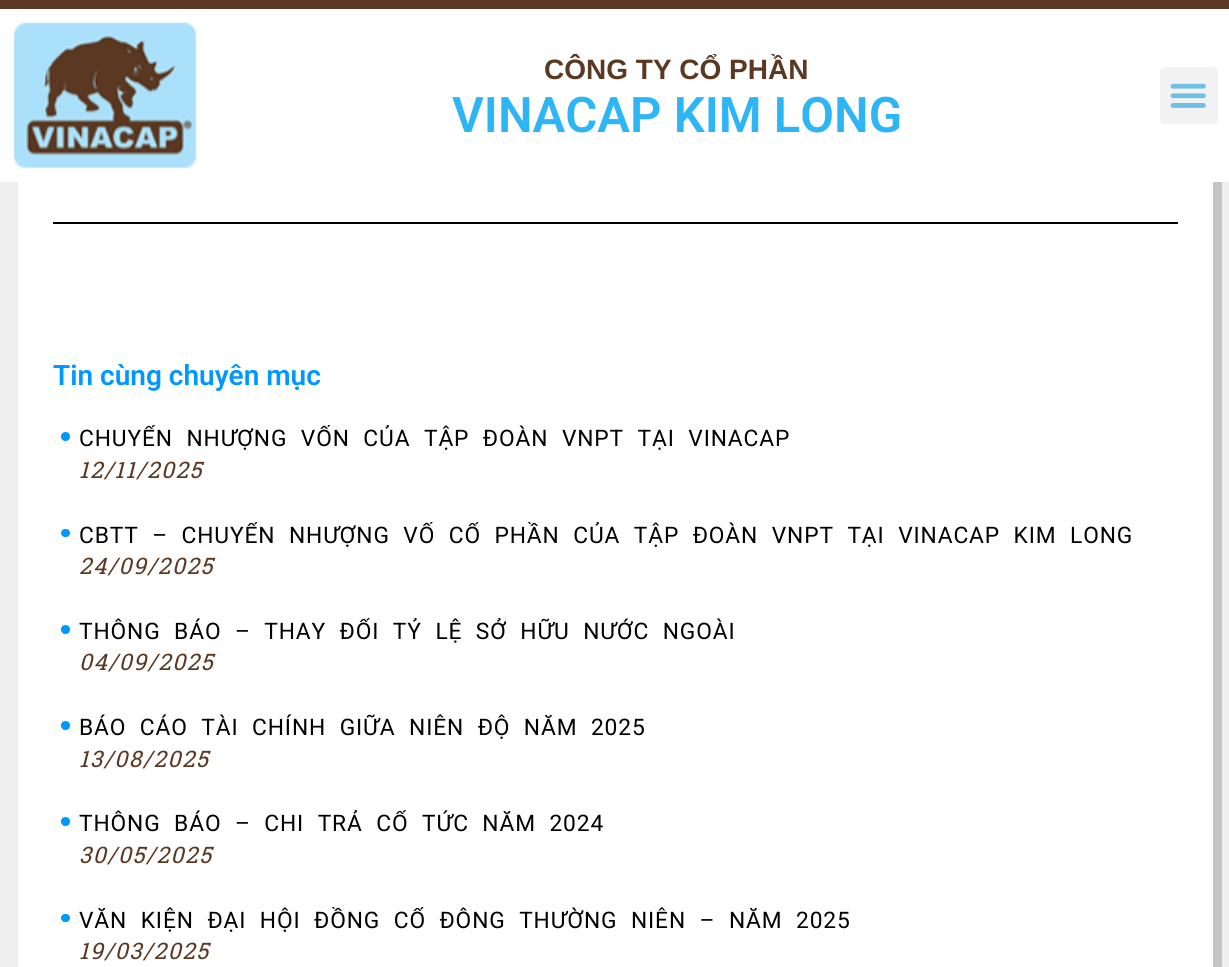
import math
import cairocffi as cairo

surface = cairo.ImageSurface(cairo.FORMAT_RGB24, 1229, 967)
ctx = cairo.Context(surface)
options = cairo.FontOptions()
options.set_hint_metrics(cairo.HINT_METRICS_OFF)
options.set_hint_style(cairo.HINT_STYLE_NONE)
ctx.set_font_options(options)
ctx.set_miter_limit(4)


def rgb(r, g, b):
    ctx.set_source_rgb(r / 255, g / 255, b / 255)


def face(family, size, italic, bold):
    ctx.select_font_face(family, cairo.FONT_SLANT_ITALIC if italic else cairo.FONT_SLANT_NORMAL, cairo.FONT_WEIGHT_BOLD if bold else cairo.FONT_WEIGHT_NORMAL)
    ctx.set_font_size(size)


def label(x, y, s):
    ctx.move_to(x, y)
    ctx.show_text(s)


def tracked(x, y, s, letter, word):
    ctx.move_to(x, y)
    for ch in s:
        ctx.show_text(ch)
        ctx.rel_move_to(letter + word * (ch == ' '), 0)


def rect(x, y, w, h):
    ctx.rectangle(x, y, w, h)
    ctx.fill()


def rrect(x, y, w, h, r):
    ctx.new_sub_path()
    for i, (u, v) in enumerate([(x + w - r, y + h - r), (x + r, y + h - r), (x + r, y + r), (x + w - r, y + r)]):
        ctx.arc(u, v, r, i * math.pi / 2, (i + 1) * math.pi / 2)
    ctx.close_path()


def image(path, x, y, w, h):
    ctx.save()
    ctx.set_source_surface(cairo.ImageSurface.create_from_png(path), x, y)
    ctx.rectangle(x, y, w, h)
    ctx.fill()
    ctx.restore()


rgb(239, 239, 239)
ctx.paint()
rgb(197, 197, 197)
ctx.new_path()
ctx.move_to(26, 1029)
ctx.line_to(26, 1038)
ctx.line_to(1222, 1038)
ctx.line_to(1222, -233)
ctx.line_to(1213, -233)
ctx.line_to(1213, 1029)
ctx.close_path()
ctx.fill()
rgb(255, 255, 255)
rect(0, 9, 1229, 173)
rgb(90, 56, 34)
rect(0, 0, 1229, 9)
image('image0.png', 14, 22, 183, 146)
face('Liberation Sans', 28, 0, 1)
label(544, 79, 'CÔNG TY CỔ PHẦN')
face('Roboto SemiBold', 49, 0, 0)
rgb(45, 181, 246)
label(452, 132, 'VINACAP KIM LONG')
rgb(242, 242, 242)
rrect(1160, 67, 58, 57, 5)
ctx.fill()
image('image1.png', 1170, 83, 36, 25)
rgb(255, 255, 255)
rect(18, 182, 1195, 785)
rgb(0, 0, 0)
rect(53, 222, 1125, 2)
face('Roboto SemiBold', 28, 0, 0)
rgb(0, 151, 255)
label(53, 385, 'Tin cùng chuyên mục')
ctx.new_path()
ctx.arc(65.5, 436.5, 4.5, 0, 2 * math.pi)
ctx.fill()
ctx.save()
ctx.rectangle(79, 425, 1099, 62)
ctx.clip()
face('Roboto', 22.75, 0, 0)
rgb(0, 0, 0)
tracked(79, 446, 'CHUYỂN NHƯỢNG VỐN CỦA TẬP ĐOÀN VNPT TẠI VINACAP', 0.88, 7)
ctx.restore()
face('Roboto Slab', 22.75, 1, 0)
rgb(90, 56, 34)
tracked(79, 478, '12/11/2025', 1.5, 0)
rgb(0, 151, 255)
rrect(61, 529, 9, 8, 4)
ctx.fill()
ctx.save()
ctx.rectangle(79, 522, 1099, 61)
ctx.clip()
face('Roboto', 22.75, 0, 0)
rgb(0, 0, 0)
tracked(79, 543, 'CBTT – CHUYỂN NHƯỢNG VỐ CỔ PHẦN CỦA TẬP ĐOÀN VNPT TẠI VINACAP KIM LONG', 0.88, 7)
ctx.restore()
rgb(90, 56, 34)
tracked(79, 574, '24/09/2025', 1.5, 0)
rgb(0, 151, 255)
ctx.new_path()
ctx.arc(65.5, 629.5, 4.5, 0, 2 * math.pi)
ctx.fill()
ctx.save()
ctx.rectangle(79, 618, 1099, 61)
ctx.clip()
face('Roboto', 22.75, 0, 0)
rgb(0, 0, 0)
tracked(79, 639, 'THÔNG BÁO – THAY ĐỔI TỶ LỆ SỞ HỮU NƯỚC NGOÀI', 0.88, 7)
ctx.restore()
rgb(90, 56, 34)
tracked(79, 670, '04/09/2025', 1.5, 0)
rgb(0, 151, 255)
ctx.new_path()
ctx.arc(65.5, 725.5, 4.5, 0, 2 * math.pi)
ctx.fill()
face('Roboto', 22.75, 0, 0)
rgb(0, 0, 0)
tracked(79, 735, 'BÁO CÁO TÀI CHÍNH GIỮA NIÊN ĐỘ NĂM 2025', 0.88, 7)
face('Roboto Slab', 22.75, 1, 0)
rgb(90, 56, 34)
tracked(79, 767, '13/08/2025', 1.5, 0)
rgb(0, 151, 255)
ctx.new_path()
ctx.arc(65.5, 821.5, 4.5, 0, 2 * math.pi)
ctx.fill()
ctx.save()
ctx.rectangle(79, 810, 1099, 62)
ctx.clip()
face('Roboto', 22.75, 0, 0)
rgb(0, 0, 0)
tracked(79, 831, 'THÔNG BÁO – CHI TRẢ CỔ TỨC NĂM 2024', 0.88, 7)
ctx.restore()
rgb(90, 56, 34)
tracked(79, 863, '30/05/2025', 1.5, 0)
rgb(0, 151, 255)
rrect(61, 914, 9, 8, 4)
ctx.fill()
ctx.save()
ctx.rectangle(79, 907, 1099, 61)
ctx.clip()
face('Roboto', 22.75, 0, 0)
rgb(0, 0, 0)
tracked(79, 928, 'VĂN KIỆN ĐẠI HỘI ĐỒNG CỔ ĐÔNG THƯỜNG NIÊN – NĂM 2025', 0.88, 7)
ctx.restore()
rgb(90, 56, 34)
tracked(79, 959, '19/03/2025', 1.5, 0)
surface.write_to_png('render.png')
